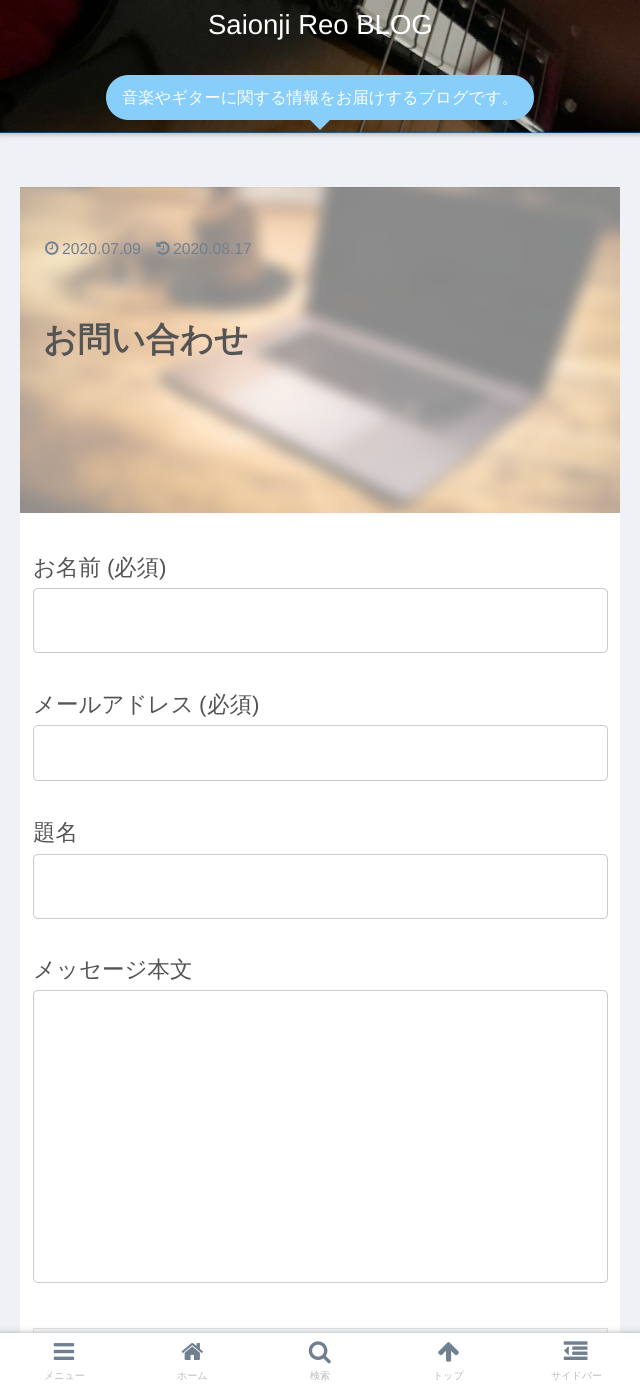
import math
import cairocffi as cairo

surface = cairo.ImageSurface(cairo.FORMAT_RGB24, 640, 1395)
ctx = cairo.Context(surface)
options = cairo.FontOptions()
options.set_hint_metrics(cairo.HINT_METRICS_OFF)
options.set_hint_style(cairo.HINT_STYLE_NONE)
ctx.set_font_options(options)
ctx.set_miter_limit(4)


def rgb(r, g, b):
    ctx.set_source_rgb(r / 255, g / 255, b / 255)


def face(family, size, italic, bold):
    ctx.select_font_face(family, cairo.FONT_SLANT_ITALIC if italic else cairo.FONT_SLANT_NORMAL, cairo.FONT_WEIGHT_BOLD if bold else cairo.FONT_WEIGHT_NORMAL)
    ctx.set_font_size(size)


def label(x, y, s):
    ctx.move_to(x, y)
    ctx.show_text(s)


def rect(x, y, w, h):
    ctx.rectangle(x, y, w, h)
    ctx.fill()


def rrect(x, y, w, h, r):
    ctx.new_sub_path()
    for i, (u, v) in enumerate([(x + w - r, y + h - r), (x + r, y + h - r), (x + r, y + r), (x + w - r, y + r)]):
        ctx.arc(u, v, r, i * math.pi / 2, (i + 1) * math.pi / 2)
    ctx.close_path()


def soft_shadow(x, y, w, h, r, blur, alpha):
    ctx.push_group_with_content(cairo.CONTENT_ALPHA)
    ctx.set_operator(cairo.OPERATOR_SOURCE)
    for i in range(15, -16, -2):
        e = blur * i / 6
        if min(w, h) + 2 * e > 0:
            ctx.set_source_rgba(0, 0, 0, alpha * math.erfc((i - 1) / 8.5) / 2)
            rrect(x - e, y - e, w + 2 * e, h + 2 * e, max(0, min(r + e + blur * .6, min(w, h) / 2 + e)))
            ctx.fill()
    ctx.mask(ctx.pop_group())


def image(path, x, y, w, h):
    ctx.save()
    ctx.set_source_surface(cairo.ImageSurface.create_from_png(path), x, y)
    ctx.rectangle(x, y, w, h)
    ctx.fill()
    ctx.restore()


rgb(239, 241, 245)
ctx.paint()
rgb(169, 169, 169)
soft_shadow(0, 1, 640, 133, 0, 3, 1)
rgb(30, 115, 190)
rect(0, 132, 640, 1)
image('image0.png', 0, 0, 640, 133)
face('Liberation Sans', 27.5, 0, 0)
rgb(255, 255, 255)
label(208, 34, 'Saionji Reo BLOG')
rgb(135, 206, 250)
rrect(106, 75, 428, 45, 22.5)
ctx.fill()
face('WenQuanYi Zen Hei Medium', 16.25, 0, 0)
rgb(255, 255, 255)
label(122, 103, '音楽やギターに関する情報をお届けするブログです。')
rgb(135, 206, 250)
ctx.new_path()
ctx.move_to(301, 111)
ctx.line_to(339, 111)
ctx.line_to(320, 130)
ctx.close_path()
ctx.fill()
rgb(255, 255, 255)
rect(20, 188, 600, 1145)
image('image1.png', 20, 187, 600, 326)
image('image2.png', 45, 241, 14, 14)
face('Liberation Sans', 15.75, 0, 0)
rgb(112, 128, 144)
label(62, 254, '2020.07.09')
image('image3.png', 156, 241, 14, 14)
label(173, 254, '2020.08.17')
face('WenQuanYi Zen Hei', 33.75, 0, 1)
rgb(84, 84, 84)
label(43, 351, 'お問い合わせ')
face('WenQuanYi Zen Hei Medium', 22.5, 0, 0)
label(33, 575, 'お名前')
face('Liberation Sans', 22.5, 0, 0)
label(107, 575, '(')
face('WenQuanYi Zen Hei Medium', 22.5, 0, 0)
label(114, 575, '必須')
face('Liberation Sans', 22.5, 0, 0)
label(159, 575, ')')
rrect(33.5, 588.5, 574, 64, 4.5)
rgb(204, 204, 204)
ctx.set_line_width(1)
ctx.stroke()
face('WenQuanYi Zen Hei Medium', 22.5, 0, 0)
rgb(84, 84, 84)
label(33, 712, 'メールアドレス')
face('Liberation Sans', 22.5, 0, 0)
label(199, 712, '(')
face('WenQuanYi Zen Hei Medium', 22.5, 0, 0)
label(207, 712, '必須')
face('Liberation Sans', 22.5, 0, 0)
label(252, 712, ')')
rrect(33.5, 725.5, 574, 55, 4.5)
rgb(204, 204, 204)
ctx.stroke()
face('WenQuanYi Zen Hei Medium', 22.5, 0, 0)
rgb(84, 84, 84)
label(33, 840, '題名')
rrect(33.5, 854.5, 574, 64, 4.5)
rgb(204, 204, 204)
ctx.stroke()
rgb(84, 84, 84)
label(33, 977, 'メッセージ本文')
rrect(33.5, 990.5, 574, 292, 4.5)
rgb(204, 204, 204)
ctx.stroke()
rgb(245, 248, 250)
rect(34, 1329, 573, 4)
ctx.rectangle(33.5, 1328.5, 574, 51)
rgb(221, 221, 221)
ctx.stroke()
rgb(169, 169, 169)
soft_shadow(0, 1333, 640, 62, 0, 3, 1)
rgb(255, 255, 255)
rect(0, 1333, 640, 62)
image('image4.png', 53, 1343, 22, 17)
face('WenQuanYi Zen Hei Medium', 10, 0, 0)
rgb(187, 187, 187)
label(44, 1379, 'メニュー')
image('image5.png', 181, 1343, 22, 17)
label(177, 1379, 'ホーム')
image('image6.png', 308, 1341, 23, 23)
label(310, 1379, '検索')
image('image7.png', 438, 1342, 21, 20)
label(433, 1379, 'トップ')
image('image8.png', 563, 1341, 25, 19)
label(551, 1379, 'サイドバー')
surface.write_to_png('render.png')
